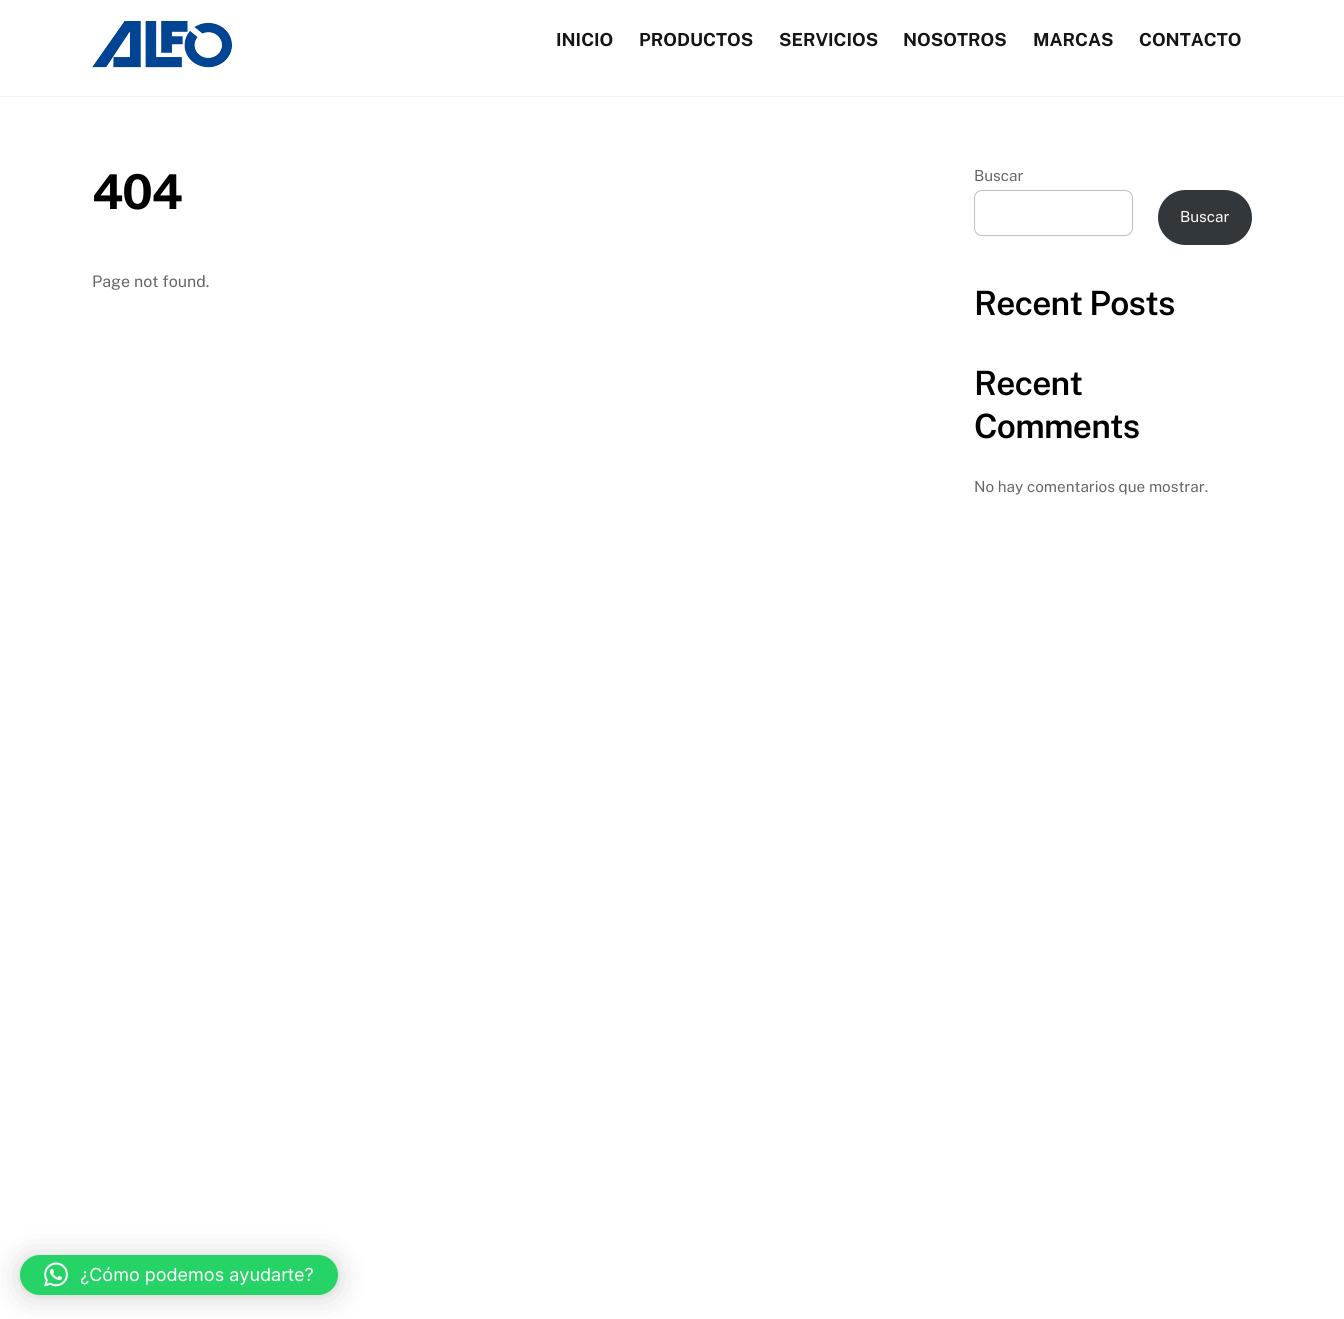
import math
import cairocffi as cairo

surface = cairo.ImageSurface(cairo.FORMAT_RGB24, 1344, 1319)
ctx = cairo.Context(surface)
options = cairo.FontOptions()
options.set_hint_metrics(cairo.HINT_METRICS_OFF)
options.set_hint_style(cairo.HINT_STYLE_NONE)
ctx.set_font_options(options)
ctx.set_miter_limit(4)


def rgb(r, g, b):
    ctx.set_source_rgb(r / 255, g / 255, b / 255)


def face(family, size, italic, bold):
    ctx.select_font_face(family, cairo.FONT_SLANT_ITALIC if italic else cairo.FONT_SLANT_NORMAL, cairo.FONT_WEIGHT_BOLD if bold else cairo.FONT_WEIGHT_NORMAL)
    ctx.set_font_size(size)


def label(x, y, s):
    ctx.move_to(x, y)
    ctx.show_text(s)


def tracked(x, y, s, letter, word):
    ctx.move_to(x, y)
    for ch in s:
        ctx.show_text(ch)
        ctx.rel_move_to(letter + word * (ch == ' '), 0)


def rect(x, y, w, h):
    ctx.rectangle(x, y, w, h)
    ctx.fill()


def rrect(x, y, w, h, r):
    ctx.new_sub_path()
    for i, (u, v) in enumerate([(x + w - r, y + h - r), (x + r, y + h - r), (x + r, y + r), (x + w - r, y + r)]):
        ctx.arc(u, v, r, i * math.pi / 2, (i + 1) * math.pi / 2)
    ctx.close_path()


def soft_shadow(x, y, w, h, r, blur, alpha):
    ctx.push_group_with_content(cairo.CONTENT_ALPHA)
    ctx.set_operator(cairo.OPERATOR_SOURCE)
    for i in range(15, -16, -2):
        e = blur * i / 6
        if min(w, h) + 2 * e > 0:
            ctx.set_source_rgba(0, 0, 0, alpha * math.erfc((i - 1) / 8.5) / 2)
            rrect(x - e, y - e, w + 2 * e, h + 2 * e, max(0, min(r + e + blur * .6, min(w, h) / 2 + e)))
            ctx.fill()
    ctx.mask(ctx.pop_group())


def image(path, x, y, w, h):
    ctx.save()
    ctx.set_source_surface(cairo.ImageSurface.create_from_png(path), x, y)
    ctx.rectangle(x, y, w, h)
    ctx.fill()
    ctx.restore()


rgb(255, 255, 255)
ctx.paint()
rgb(242, 242, 242)
rect(0, 96, 1344, 1)
image('image0.png', 92, 21, 141, 47)
face('Public Sans', 18, 0, 1)
rgb(21, 21, 21)
label(556, 46, 'INICIO')
label(639, 46, 'PRODUCTOS')
label(779, 46, 'SERVICIOS')
label(903, 46, 'NOSOTROS')
label(1033, 46, 'MARCAS')
label(1139, 46, 'CONTACTO')
face('Public Sans', 48, 0, 1)
rgb(0, 0, 0)
tracked(92, 209, '404', -1.5, 0)
face('Public Sans', 16, 0, 0)
rgb(102, 102, 102)
label(92, 287, 'Page not found.')
face('Public Sans', 15.25, 0, 0)
label(974, 181, 'Buscar')
rrect(974.5, 190.5, 158, 45, 7.5)
rgb(191, 191, 191)
ctx.set_line_width(1)
ctx.stroke()
rgb(50, 55, 60)
rrect(1158, 190, 94, 55, 27.5)
ctx.fill()
rgb(255, 255, 255)
label(1180, 222, 'Buscar')
face('Public Sans SemiBold', 33.5, 0, 0)
rgb(0, 0, 0)
tracked(974, 315, 'Recent Posts', -0.75, 0)
tracked(974, 395, 'Recent', -0.75, 0)
tracked(974, 438, 'Comments', -0.75, 0)
face('Public Sans', 15.25, 0, 0)
rgb(102, 102, 102)
label(974, 492, 'No hay comentarios que mostrar.')
rgb(0, 0, 0)
soft_shadow(20, 1257, 318, 40, 20, 16, 0.16)
soft_shadow(20, 1256, 318, 40, 20, 3, 0.06)
rgb(37, 211, 102)
rrect(20, 1255, 318, 40, 20)
ctx.fill()
image('image1.png', 44, 1262, 24, 25)
face('Inter', 18, 0, 0)
rgb(255, 255, 255)
label(80, 1281, '¿Cómo podemos ayudarte?')
surface.write_to_png('render.png')
